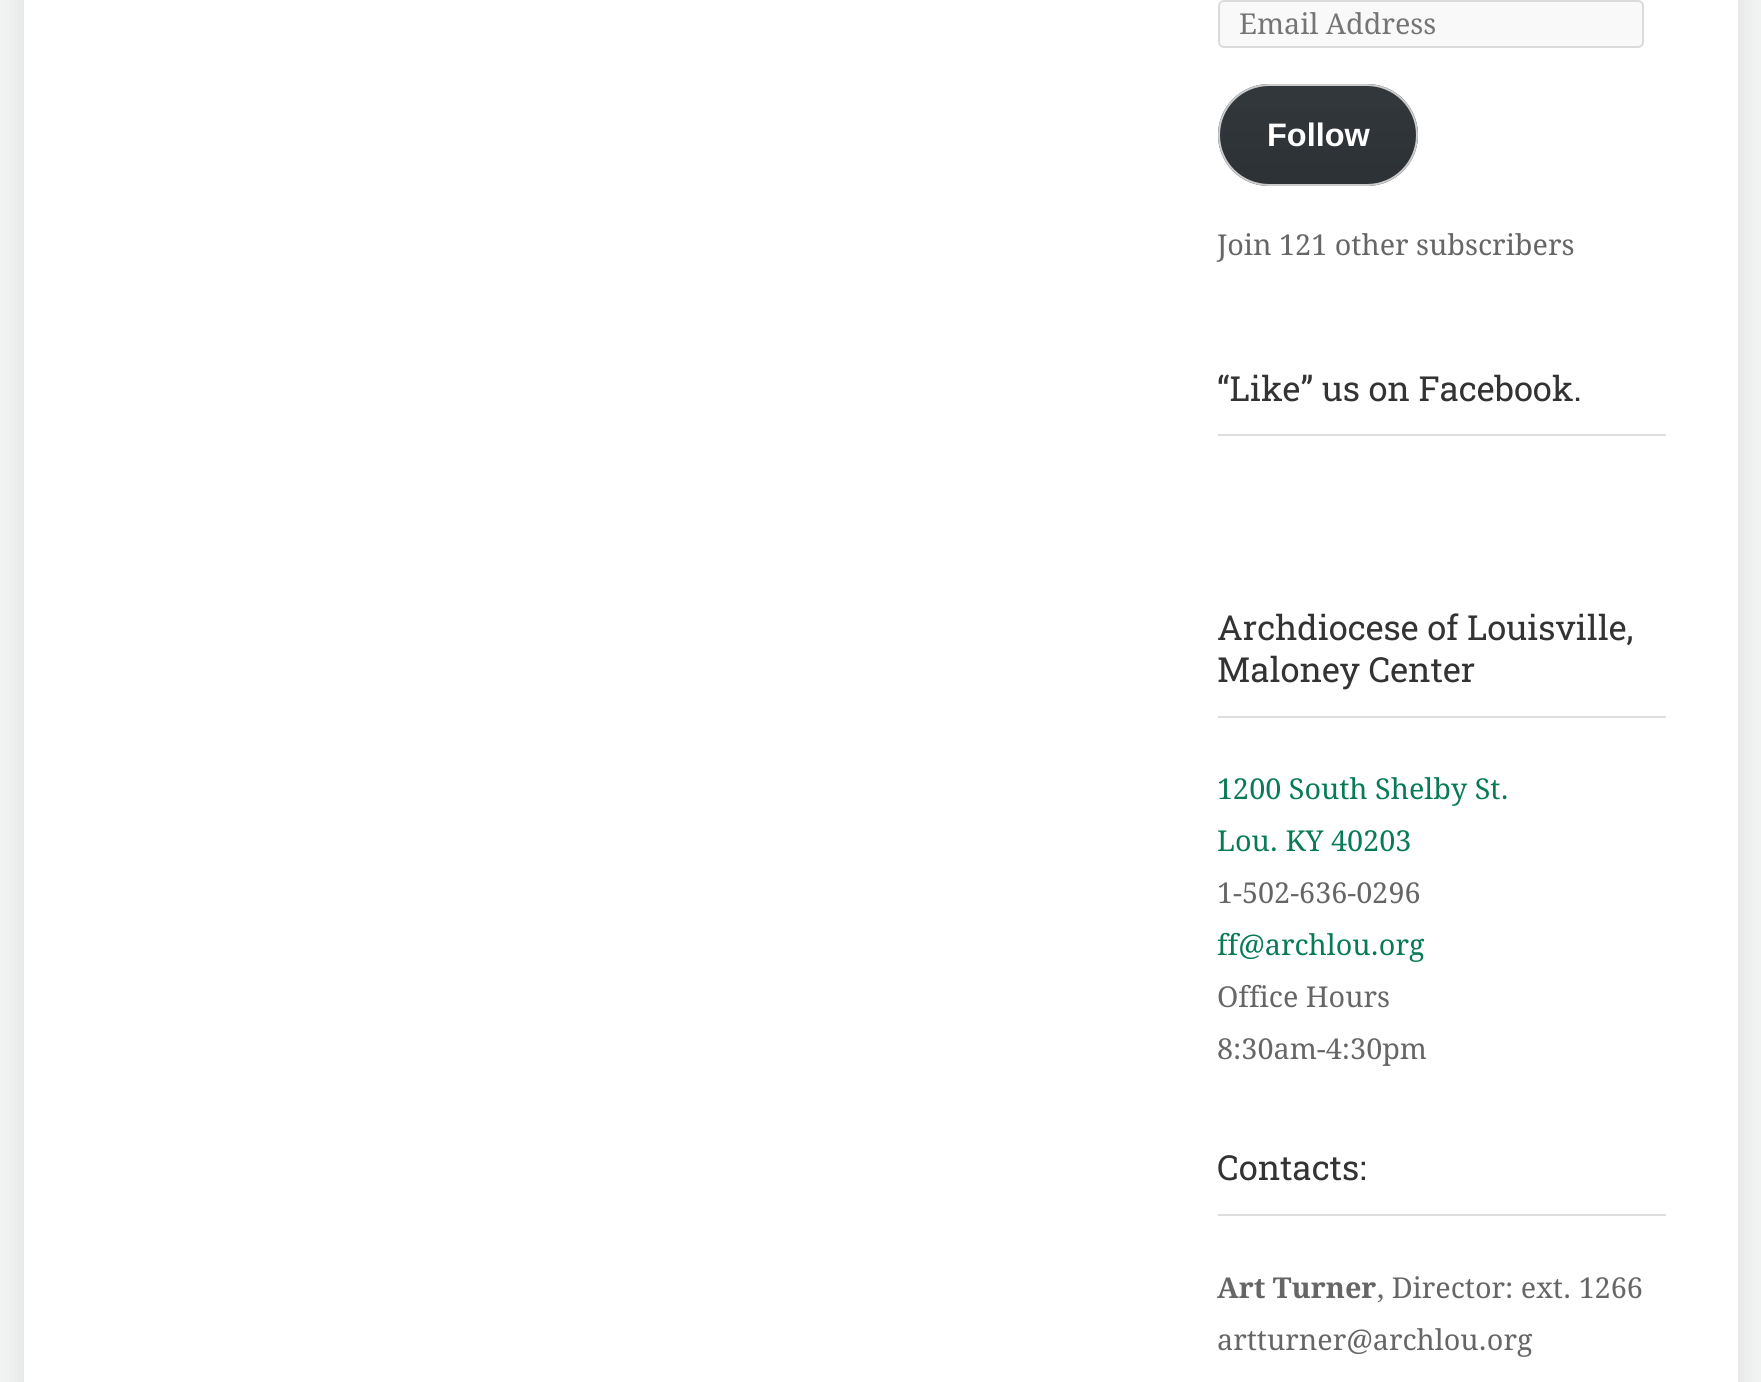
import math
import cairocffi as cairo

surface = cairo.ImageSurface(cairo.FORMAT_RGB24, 1761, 1382)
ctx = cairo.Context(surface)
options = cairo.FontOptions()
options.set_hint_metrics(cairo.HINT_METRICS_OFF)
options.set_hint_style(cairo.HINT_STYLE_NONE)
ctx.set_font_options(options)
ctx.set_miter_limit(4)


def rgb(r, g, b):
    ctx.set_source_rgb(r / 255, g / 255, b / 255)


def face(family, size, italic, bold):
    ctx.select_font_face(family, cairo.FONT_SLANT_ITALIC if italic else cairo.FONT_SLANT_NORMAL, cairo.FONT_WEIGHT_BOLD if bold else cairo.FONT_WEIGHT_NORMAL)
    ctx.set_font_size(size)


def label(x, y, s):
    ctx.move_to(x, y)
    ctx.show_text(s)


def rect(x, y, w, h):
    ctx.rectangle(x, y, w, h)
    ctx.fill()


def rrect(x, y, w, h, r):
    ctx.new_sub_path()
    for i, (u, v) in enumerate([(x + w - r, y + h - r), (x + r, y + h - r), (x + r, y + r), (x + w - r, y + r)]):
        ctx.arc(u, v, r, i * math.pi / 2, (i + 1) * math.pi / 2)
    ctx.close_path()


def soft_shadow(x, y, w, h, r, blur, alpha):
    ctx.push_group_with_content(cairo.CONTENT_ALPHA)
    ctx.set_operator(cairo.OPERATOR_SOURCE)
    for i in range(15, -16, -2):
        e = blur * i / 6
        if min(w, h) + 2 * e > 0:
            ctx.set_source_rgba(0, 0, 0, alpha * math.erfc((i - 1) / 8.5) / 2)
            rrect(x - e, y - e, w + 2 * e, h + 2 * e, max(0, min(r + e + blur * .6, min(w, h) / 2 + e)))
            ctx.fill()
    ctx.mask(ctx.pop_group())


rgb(241, 242, 242)
ctx.paint()
rgb(0, 0, 0)
soft_shadow(24, -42, 1714, 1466, 6, 12, 0.08)
rgb(255, 255, 255)
rect(24, 0, 1714, 1382)
rgb(249, 249, 249)
rrect(1219, 1, 424, 46, 5)
ctx.fill_preserve()
rgb(219, 219, 219)
ctx.stroke()
face('Droid Serif', 28.75, 0, 0)
rgb(117, 117, 117)
label(1239, 34, 'Email Address')
rgb(50, 55, 60)
rrect(1218, 84, 200, 102, 51)
ctx.fill()
ctx.save()
rrect(1218, 84, 200, 102, 51)
ctx.clip()
gradient = cairo.LinearGradient(1318, 86, 1318, 184)
gradient.add_color_stop_rgba(0, 0, 0, 0, 0)
gradient.add_color_stop_rgba(1, 0, 0, 0, 0.1)
ctx.set_source(gradient)
rect(1218, 107, 200, 77)
ctx.restore()
rrect(1219, 85, 198, 100, 50)
rgb(204, 204, 204)
ctx.stroke()
face('Liberation Sans', 32.5, 0, 1)
rgb(255, 255, 255)
label(1267, 146, 'Follow')
face('Droid Serif', 28.75, 0, 0)
rgb(102, 102, 102)
label(1217, 255, 'Join 121 other subscribers')
rgb(221, 221, 221)
rect(1218, 434, 448, 2)
face('Roboto Slab', 34.5, 0, 0)
rgb(51, 51, 51)
label(1217, 401, '“Like” us on Facebook.')
rgb(221, 221, 221)
rect(1218, 716, 448, 2)
rgb(51, 51, 51)
label(1217, 640, 'Archdiocese of Louisville,')
label(1217, 682, 'Maloney Center')
face('Droid Serif', 28.75, 0, 0)
rgb(9, 122, 88)
label(1217, 799, '1200 South Shelby St.')
label(1217, 851, 'Lou. KY 40203')
rgb(102, 102, 102)
label(1217, 903, '1-502-636-0296')
rgb(9, 122, 88)
label(1217, 955, 'ff@archlou.org')
rgb(102, 102, 102)
label(1217, 1007, 'Office Hours')
label(1217, 1059, '8:30am-4:30pm')
rgb(221, 221, 221)
rect(1218, 1214, 448, 2)
face('Roboto Slab', 34.5, 0, 0)
rgb(51, 51, 51)
label(1217, 1180, 'Contacts:')
face('Droid Serif', 28.75, 0, 1)
rgb(102, 102, 102)
label(1217, 1298, 'Art Turner')
face('Droid Serif', 28.75, 0, 0)
label(1377, 1298, ', Director: ext. 1266')
label(1217, 1350, 'artturner@archlou.org')
surface.write_to_png('render.png')
